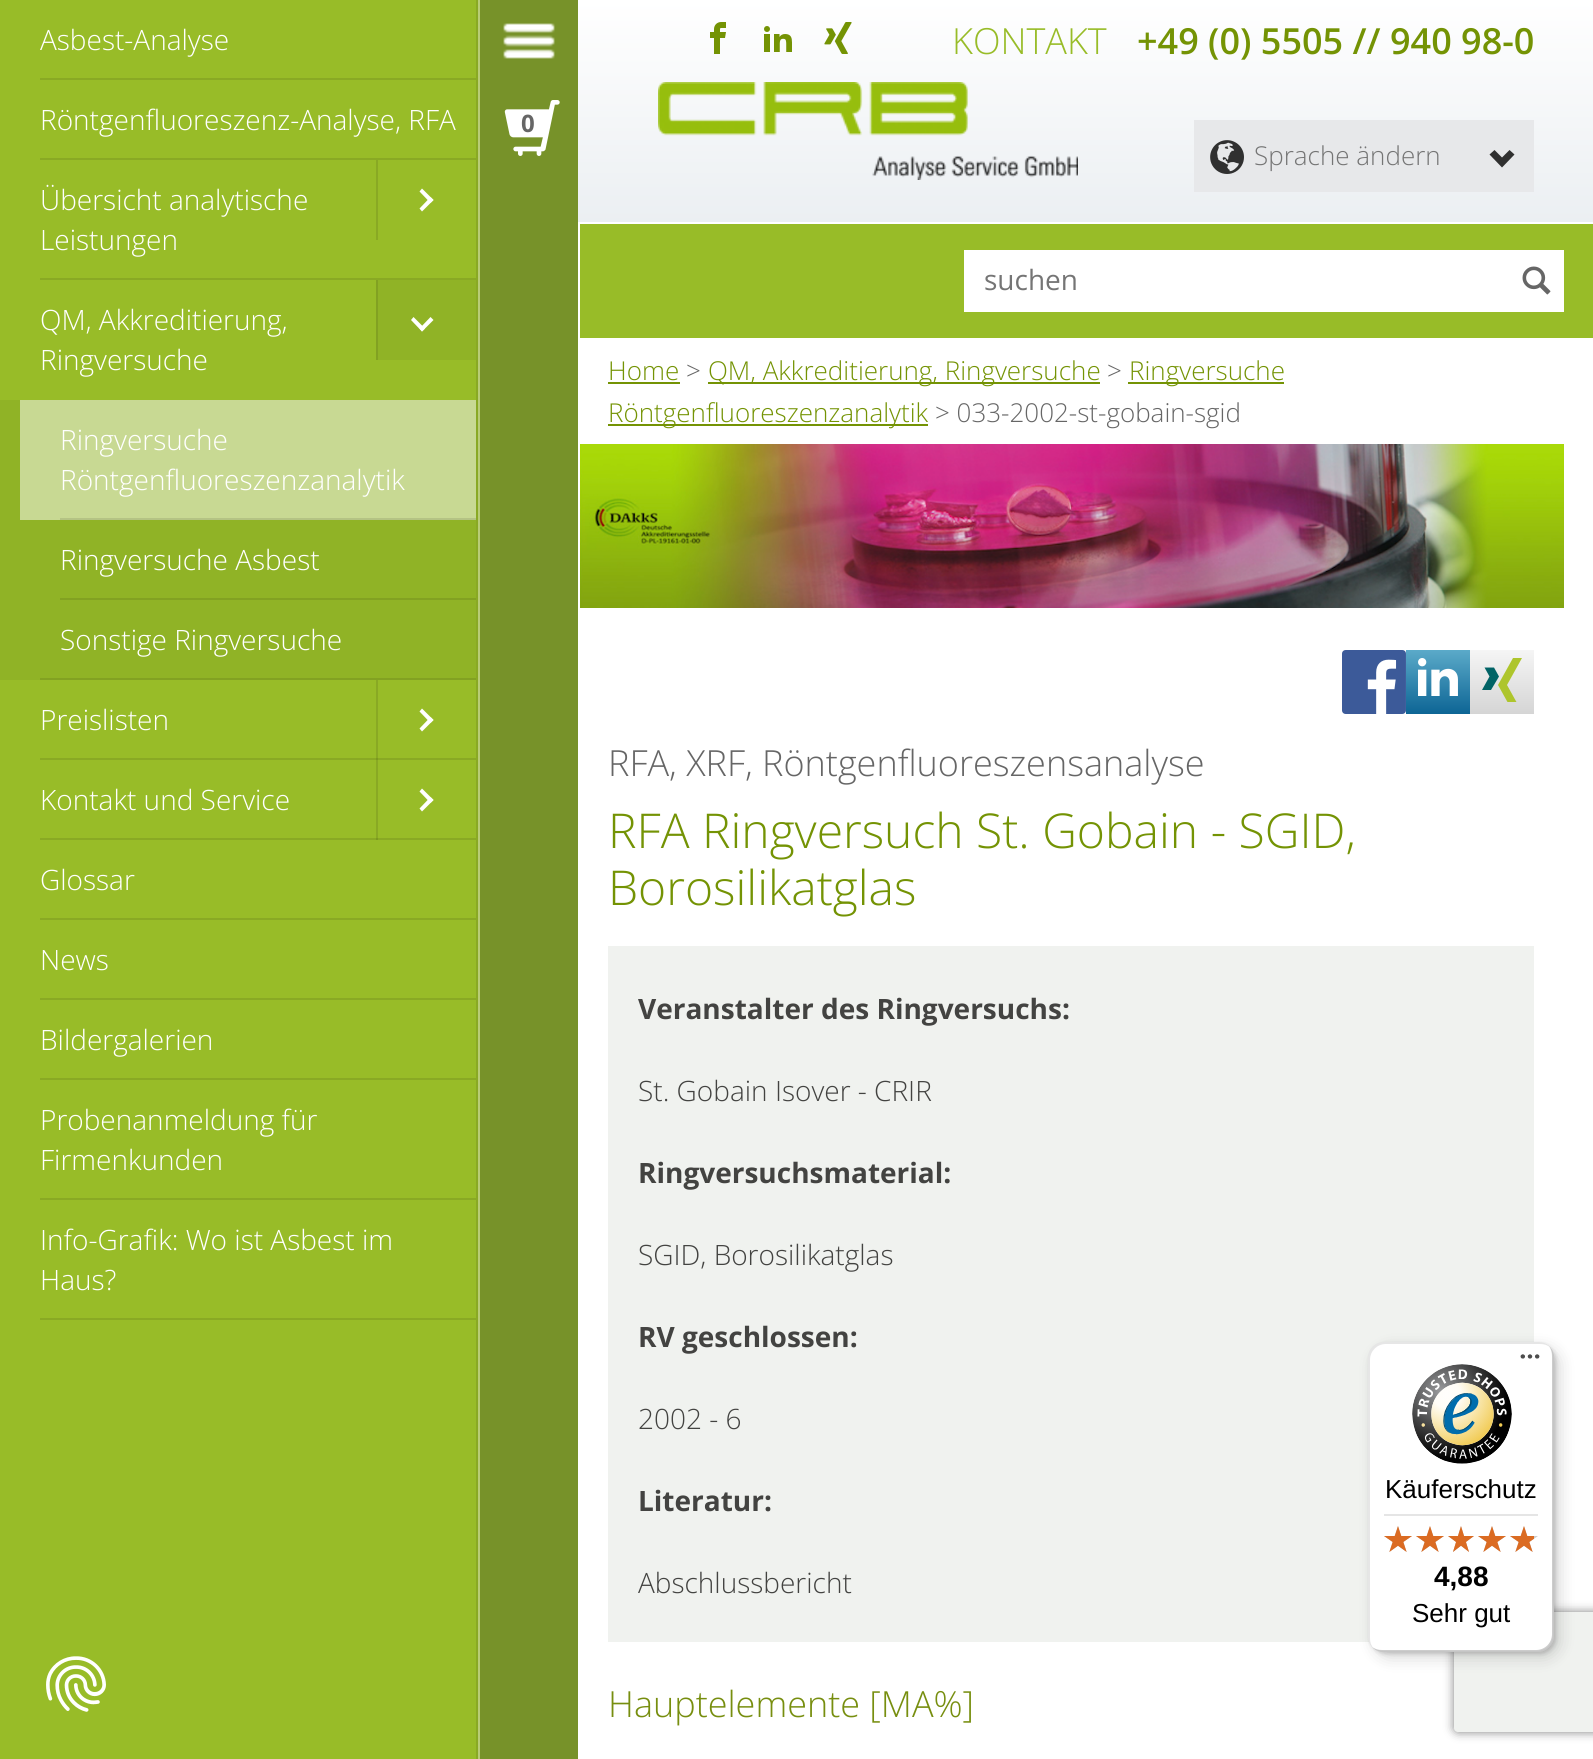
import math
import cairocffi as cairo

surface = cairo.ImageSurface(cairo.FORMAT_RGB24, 1593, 1759)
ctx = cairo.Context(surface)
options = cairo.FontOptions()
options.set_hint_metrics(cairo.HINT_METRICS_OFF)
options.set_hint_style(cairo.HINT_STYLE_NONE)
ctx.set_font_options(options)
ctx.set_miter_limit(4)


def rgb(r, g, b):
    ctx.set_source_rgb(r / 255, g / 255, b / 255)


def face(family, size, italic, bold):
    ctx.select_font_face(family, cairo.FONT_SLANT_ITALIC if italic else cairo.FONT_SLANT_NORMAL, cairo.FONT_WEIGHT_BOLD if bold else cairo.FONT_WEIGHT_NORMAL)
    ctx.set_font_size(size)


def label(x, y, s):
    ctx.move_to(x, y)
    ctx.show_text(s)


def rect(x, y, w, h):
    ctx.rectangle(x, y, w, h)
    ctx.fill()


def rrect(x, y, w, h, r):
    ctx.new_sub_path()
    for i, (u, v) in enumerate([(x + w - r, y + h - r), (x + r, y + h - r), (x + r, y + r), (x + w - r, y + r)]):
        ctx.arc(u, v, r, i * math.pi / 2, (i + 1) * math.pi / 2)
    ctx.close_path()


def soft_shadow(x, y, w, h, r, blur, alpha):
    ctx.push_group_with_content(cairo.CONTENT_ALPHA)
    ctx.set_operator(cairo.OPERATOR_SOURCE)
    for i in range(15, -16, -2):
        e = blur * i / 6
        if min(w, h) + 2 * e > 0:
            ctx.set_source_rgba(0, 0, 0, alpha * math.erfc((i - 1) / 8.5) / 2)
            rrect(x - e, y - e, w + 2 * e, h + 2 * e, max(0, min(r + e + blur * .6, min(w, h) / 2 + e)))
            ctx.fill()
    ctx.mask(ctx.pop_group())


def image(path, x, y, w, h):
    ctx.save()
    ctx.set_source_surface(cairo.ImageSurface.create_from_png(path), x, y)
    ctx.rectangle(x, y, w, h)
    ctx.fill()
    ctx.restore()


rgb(152, 188, 40)
ctx.paint()
rgb(137, 169, 36)
rect(376, 680, 2, 160)
rect(476, 0, 2, 1759)
face('Open Sans Light', 28, 0, 0)
rgb(255, 255, 255)
label(40, 50, 'Asbest-Analyse')
rgb(137, 169, 36)
rect(40, 78, 436, 2)
rgb(255, 255, 255)
label(40, 130, 'Röntgenfluoreszenz-Analyse, RFA')
rgb(137, 169, 36)
rect(40, 158, 436, 2)
rgb(255, 255, 255)
label(40, 210, 'Übersicht analytische')
label(40, 250, 'Leistungen')
rgb(137, 169, 36)
rect(376, 160, 2, 80)
rgb(255, 255, 255)
ctx.new_path()
ctx.move_to(419.5, 191.5)
ctx.line_to(422, 188.5)
ctx.line_to(433.5, 200)
ctx.line_to(430.5, 203)
ctx.close_path()
ctx.fill()
ctx.new_path()
ctx.move_to(419.5, 208.5)
ctx.line_to(430.5, 197)
ctx.line_to(433.5, 200)
ctx.line_to(422, 211.5)
ctx.close_path()
ctx.fill()
rgb(137, 169, 36)
rect(40, 278, 436, 2)
rgb(255, 255, 255)
label(40, 330, 'QM, Akkreditierung,')
label(40, 370, 'Ringversuche')
rgb(144, 179, 38)
rect(378, 280, 98, 80)
rgb(130, 161, 34)
rect(376, 280, 2, 80)
rgb(255, 255, 255)
ctx.new_path()
ctx.move_to(430.5, 317)
ctx.line_to(433.5, 320)
ctx.line_to(422, 331.5)
ctx.line_to(419.5, 328.5)
ctx.close_path()
ctx.fill()
ctx.new_path()
ctx.move_to(413.5, 317)
ctx.line_to(425, 328.5)
ctx.line_to(422, 331.5)
ctx.line_to(411, 320)
ctx.close_path()
ctx.fill()
rgb(144, 179, 38)
rect(0, 400, 476, 280)
rgb(200, 217, 147)
rect(20, 400, 456, 120)
rgb(255, 255, 255)
label(60, 450, 'Ringversuche')
label(60, 490, 'Röntgenfluoreszenzanalytik')
rgb(180, 195, 132)
rect(60, 518, 416, 2)
rgb(255, 255, 255)
label(60, 570, 'Ringversuche Asbest')
rgb(130, 161, 34)
rect(60, 598, 416, 2)
rgb(255, 255, 255)
label(60, 650, 'Sonstige Ringversuche')
rgb(130, 161, 34)
rect(40, 678, 436, 2)
rgb(255, 255, 255)
label(40, 730, 'Preislisten')
ctx.new_path()
ctx.move_to(419.5, 711.5)
ctx.line_to(422, 708.5)
ctx.line_to(433.5, 720)
ctx.line_to(430.5, 723)
ctx.close_path()
ctx.fill()
ctx.new_path()
ctx.move_to(419.5, 728.5)
ctx.line_to(430.5, 717)
ctx.line_to(433.5, 720)
ctx.line_to(422, 731.5)
ctx.close_path()
ctx.fill()
rgb(137, 169, 36)
rect(40, 758, 436, 2)
rgb(123, 152, 32)
rect(376, 758, 2, 2)
rgb(255, 255, 255)
label(40, 810, 'Kontakt und Service')
ctx.new_path()
ctx.move_to(419.5, 791.5)
ctx.line_to(422, 788.5)
ctx.line_to(433.5, 800)
ctx.line_to(430.5, 803)
ctx.close_path()
ctx.fill()
ctx.new_path()
ctx.move_to(419.5, 808.5)
ctx.line_to(430.5, 797)
ctx.line_to(433.5, 800)
ctx.line_to(422, 811.5)
ctx.close_path()
ctx.fill()
rgb(137, 169, 36)
rect(40, 838, 436, 2)
rgb(123, 152, 32)
rect(376, 838, 2, 2)
rgb(255, 255, 255)
label(40, 890, 'Glossar')
rgb(137, 169, 36)
rect(40, 918, 436, 2)
rgb(255, 255, 255)
label(40, 970, 'News')
rgb(137, 169, 36)
rect(40, 998, 436, 2)
rgb(255, 255, 255)
label(40, 1050, 'Bildergalerien')
rgb(137, 169, 36)
rect(40, 1078, 436, 2)
rgb(255, 255, 255)
label(40, 1130, 'Probenanmeldung für')
label(40, 1170, 'Firmenkunden')
rgb(137, 169, 36)
rect(40, 1198, 436, 2)
rgb(255, 255, 255)
label(40, 1250, 'Info-Grafik: Wo ist Asbest im')
label(40, 1290, 'Haus?')
rgb(137, 169, 36)
rect(40, 1318, 436, 2)
rgb(255, 255, 255)
rect(578, 338, 1015, 1421)
rgb(119, 146, 41)
rect(480, 0, 98, 1759)
rgb(184, 204, 119)
rect(478, 0, 2, 1759)
image('image0.png', 503, 23, 52, 36)
gradient = cairo.LinearGradient(1086, 0, 1086, 222)
gradient.add_color_stop_rgba(0, 1, 1, 1, 1)
gradient.add_color_stop_rgba(1, 0.922, 0.937, 0.949, 1)
ctx.set_source(gradient)
rect(578, 0, 1015, 222)
image('image1.png', 710, 22, 16, 32)
image('image2.png', 764, 26, 28, 26)
image('image3.png', 824, 22, 28, 32)
image('image4.png', 658, 82, 420, 98)
face('Open Sans Light', 36, 0, 0)
rgb(152, 188, 40)
label(952, 54, 'KONTAKT')
face('Open Sans SemiBold', 36, 0, 0)
rgb(116, 147, 4)
label(1137, 54, '+49 (0) 5505 // 940 98-0')
rgb(231, 232, 234)
rect(1194, 120, 340, 72)
image('image5.png', 1210, 140, 34, 34)
face('Open Sans Light', 26, 0, 0)
rgb(117, 117, 117)
label(1254, 165, 'Sprache ändern')
rgb(48, 48, 48)
ctx.new_path()
ctx.move_to(1489.5, 154.5)
ctx.line_to(1502, 167.5)
ctx.line_to(1514.5, 154.5)
ctx.line_to(1509.5, 150)
ctx.line_to(1502, 157.5)
ctx.line_to(1494.5, 150)
ctx.close_path()
ctx.fill()
rgb(255, 255, 255)
rect(578, 222, 1015, 2)
rect(578, 222, 2, 118)
rect(964, 250, 600, 62)
face('Open Sans', 28, 0, 0)
rgb(117, 117, 117)
label(984, 290, 'suchen')
image('image6.png', 1522, 266, 29, 29)
face('Open Sans Light', 26, 0, 0)
rgb(116, 147, 4)
label(608, 380, 'Home')
rect(608, 382, 72, 2)
rgb(102, 102, 102)
label(686, 380, '>')
rgb(116, 147, 4)
rect(708, 382, 392, 2)
label(708, 380, 'QM, Akkreditierung, Ringversuche')
rgb(102, 102, 102)
label(1107, 380, '>')
rgb(116, 147, 4)
rect(1128, 382, 156, 2)
label(1129, 380, 'Ringversuche')
rect(608, 424, 320, 2)
label(608, 422, 'Röntgenfluoreszenzanalytik')
rgb(102, 102, 102)
label(935, 422, '> 033-2002-st-gobain-sgid')
image('image7.png', 580, 444, 984, 164)
image('image8.png', 1342, 650, 64, 64)
gradient = cairo.LinearGradient(1406, 714, 1406, 650)
gradient.add_color_stop_rgba(0, 0.051, 0.396, 0.584, 1)
gradient.add_color_stop_rgba(1, 0.357, 0.667, 0.788, 1)
ctx.set_source(gradient)
rect(1406, 650, 64, 64)
image('image9.png', 1418, 658, 40, 38)
gradient = cairo.LinearGradient(1470, 714, 1470, 650)
gradient.add_color_stop_rgba(0, 0.835, 0.835, 0.835, 1)
gradient.add_color_stop_rgba(1, 0.961, 0.961, 0.961, 1)
ctx.set_source(gradient)
rect(1470, 650, 64, 64)
ctx.save()
ctx.rectangle(1482, 658, 40, 44)
ctx.clip()
rgb(174, 197, 44)
ctx.new_path()
ctx.move_to(1522, 658)
ctx.line_to(1513, 658)
ctx.line_to(1498, 685)
ctx.line_to(1508, 703)
ctx.line_to(1517, 703)
ctx.line_to(1507, 685)
ctx.close_path()
ctx.fill()
ctx.restore()
rgb(1, 99, 102)
ctx.new_path()
ctx.move_to(1491, 690)
ctx.line_to(1499, 676.5)
ctx.line_to(1494, 667.5)
ctx.line_to(1484.5, 667.5)
ctx.line_to(1489.5, 676.5)
ctx.line_to(1482, 690)
ctx.close_path()
ctx.fill()
face('Open Sans Light', 36, 0, 0)
rgb(102, 102, 102)
label(608, 776, 'RFA, XRF, Röntgenfluoreszensanalyse')
face('Open Sans Light', 48, 0, 0)
rgb(116, 147, 4)
label(608, 848, 'RFA Ringversuch St. Gobain - SGID,')
label(608, 905, 'Borosilikatglas')
rgb(240, 242, 239)
rect(608, 946, 926, 696)
face('Open Sans', 28, 0, 1)
rgb(67, 67, 65)
label(638, 1019, 'Veranstalter des Ringversuchs:')
face('Open Sans Light', 28, 0, 0)
label(638, 1101, 'St. Gobain Isover - CRIR')
face('Open Sans', 28, 0, 1)
label(638, 1183, 'Ringversuchsmaterial:')
face('Open Sans Light', 28, 0, 0)
label(638, 1265, 'SGID, Borosilikatglas')
face('Open Sans', 28, 0, 1)
label(638, 1347, 'RV geschlossen:')
face('Open Sans Light', 28, 0, 0)
label(638, 1429, '2002 - 6')
face('Open Sans', 28, 0, 1)
label(638, 1511, 'Literatur:')
face('Open Sans Light', 28, 0, 0)
label(638, 1593, 'Abschlussbericht')
face('Open Sans Light', 36, 0, 0)
rgb(119, 142, 15)
label(608, 1717, 'Hauptelemente [MA%]')
rgb(128, 128, 128)
soft_shadow(1454, 1612, 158, 120, 4, 5, 1)
rgb(240, 242, 239)
rrect(1454, 1612, 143, 120, 4)
ctx.fill()
image('image10.png', 504, 100, 56, 56)
face('Open Sans', 24, 0, 1)
rgb(102, 102, 102)
label(521, 132, '0')
rgb(0, 0, 0)
soft_shadow(1374, 1348, 186, 310, 16, 8, 0.15)
soft_shadow(1370, 1344, 186, 310, 16, 2, 0.15)
rgb(255, 255, 255)
rrect(1368, 1342, 186, 310, 16)
ctx.fill()
ctx.set_source_rgba(0, 0, 0, 0.1)
ctx.new_path()
ctx.move_to(1386, 1344)
ctx.line_to(1540, 1344)
ctx.curve_to(1544, 1344, 1547, 1345, 1550, 1347)
ctx.curve_to(1547, 1344, 1543, 1342, 1538, 1342)
ctx.line_to(1384, 1342)
ctx.curve_to(1375, 1342, 1368, 1349, 1368, 1358)
ctx.line_to(1368, 1636)
ctx.curve_to(1368, 1641, 1370, 1645, 1373, 1648)
ctx.curve_to(1371, 1645, 1370, 1642, 1370, 1638)
ctx.line_to(1370, 1360)
ctx.curve_to(1370, 1351, 1377, 1344, 1386, 1344)
ctx.close_path()
ctx.fill()
ctx.set_source_rgba(0, 0, 0, 0.2)
ctx.new_path()
ctx.move_to(1372, 1647)
ctx.curve_to(1375, 1650, 1379, 1652, 1384, 1652)
ctx.line_to(1538, 1652)
ctx.curve_to(1547, 1652, 1554, 1645, 1554, 1636)
ctx.line_to(1554, 1358)
ctx.curve_to(1554, 1353, 1552, 1349, 1549, 1346)
ctx.curve_to(1551, 1349, 1552, 1352, 1552, 1356)
ctx.line_to(1552, 1634)
ctx.curve_to(1552, 1643, 1545, 1650, 1536, 1650)
ctx.line_to(1382, 1650)
ctx.curve_to(1378, 1650, 1375, 1649, 1372, 1647)
ctx.close_path()
ctx.fill()
ctx.set_source_rgba(0.196, 0.196, 0.196, 0.2)
ctx.new_path()
ctx.move_to(1373, 1647)
ctx.curve_to(1376, 1650, 1380, 1652, 1384, 1652)
ctx.line_to(1538, 1652)
ctx.curve_to(1547, 1652, 1554, 1645, 1554, 1636)
ctx.line_to(1554, 1358)
ctx.curve_to(1554, 1354, 1552, 1350, 1549, 1347)
ctx.curve_to(1552, 1350, 1553, 1353, 1553, 1357)
ctx.line_to(1553, 1635)
ctx.curve_to(1553, 1644, 1546, 1651, 1537, 1651)
ctx.line_to(1383, 1651)
ctx.curve_to(1379, 1651, 1376, 1650, 1373, 1647)
ctx.close_path()
ctx.fill()
ctx.set_source_rgba(1, 1, 1, 0.3)
ctx.new_path()
ctx.move_to(1373, 1647)
ctx.curve_to(1376, 1650, 1380, 1652, 1384, 1652)
ctx.line_to(1538, 1652)
ctx.curve_to(1547, 1652, 1554, 1645, 1554, 1636)
ctx.line_to(1554, 1358)
ctx.curve_to(1554, 1354, 1552, 1350, 1549, 1347)
ctx.curve_to(1552, 1350, 1553, 1353, 1553, 1357)
ctx.line_to(1553, 1635)
ctx.curve_to(1553, 1644, 1546, 1651, 1537, 1651)
ctx.line_to(1383, 1651)
ctx.curve_to(1379, 1651, 1376, 1650, 1373, 1647)
ctx.close_path()
ctx.fill()
image('image11.png', 1520, 1354, 20, 5)
image('image12.png', 1412, 1364, 100, 100)
face('Liberation Sans', 26, 0, 0)
rgb(0, 0, 0)
label(1385, 1498, 'Käuferschutz')
rgb(229, 229, 229)
rect(1384, 1514, 154, 2)
image('image13.png', 1384, 1526, 28, 26)
image('image13.png', 1416, 1526, 28, 26)
image('image14.png', 1448, 1526, 26, 26)
image('image13.png', 1478, 1526, 28, 26)
image('image13.png', 1510, 1526, 28, 26)
image('image15.png', 1384, 1526, 28, 26)
image('image15.png', 1416, 1526, 28, 26)
image('image16.png', 1448, 1526, 26, 26)
image('image15.png', 1478, 1526, 28, 26)
image('image17.png', 1510, 1526, 24, 26)
face('Liberation Sans', 28, 0, 1)
rgb(0, 0, 0)
label(1434, 1586, '4,88')
face('Liberation Sans', 26, 0, 0)
label(1412, 1622, 'Sehr gut')
image('image18.png', 46, 1656, 60, 56)
surface.write_to_png('render.png')
